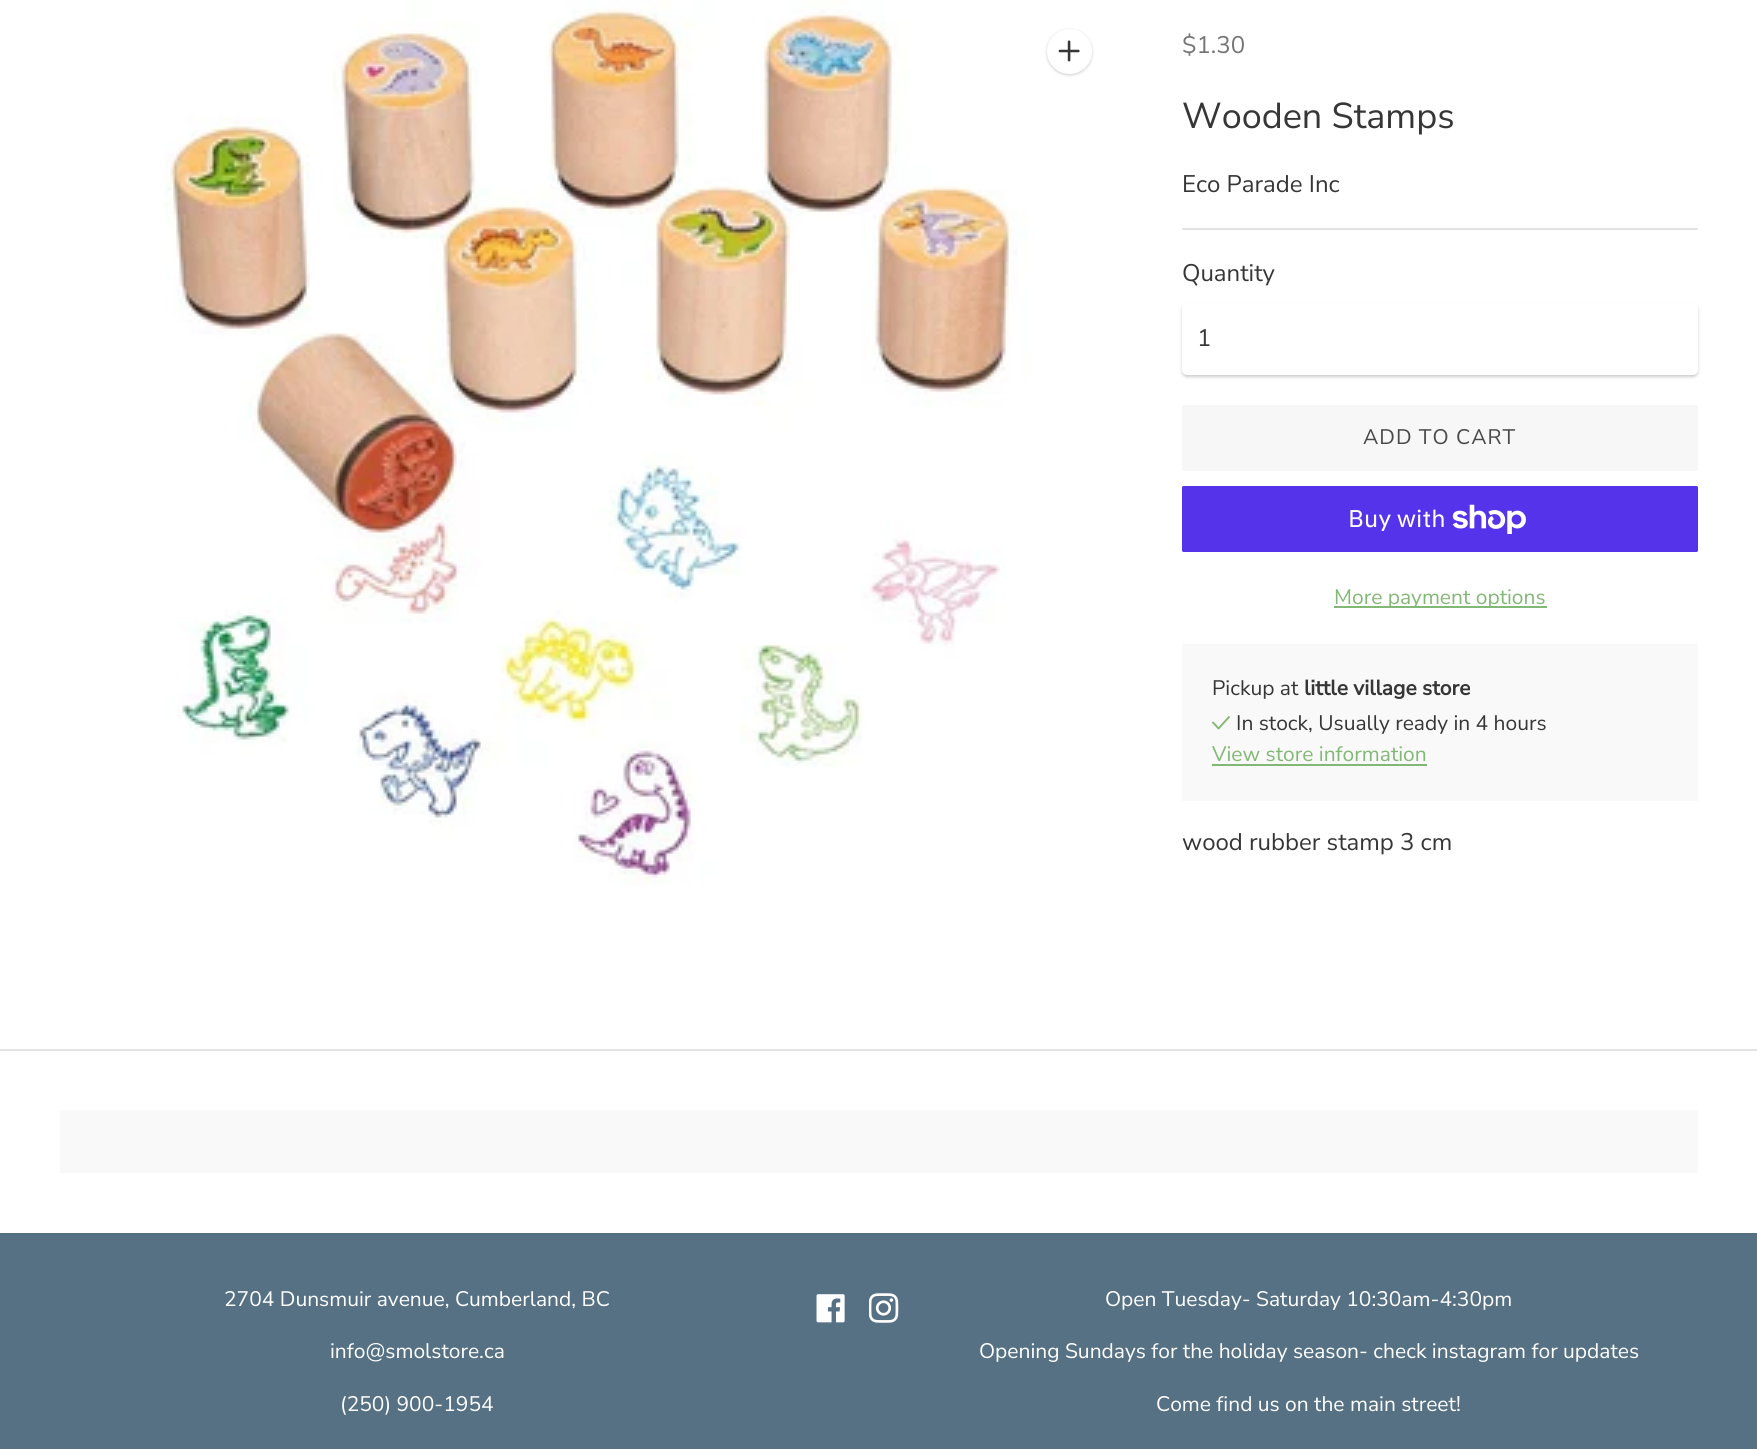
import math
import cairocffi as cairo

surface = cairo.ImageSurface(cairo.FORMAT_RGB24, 1757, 1449)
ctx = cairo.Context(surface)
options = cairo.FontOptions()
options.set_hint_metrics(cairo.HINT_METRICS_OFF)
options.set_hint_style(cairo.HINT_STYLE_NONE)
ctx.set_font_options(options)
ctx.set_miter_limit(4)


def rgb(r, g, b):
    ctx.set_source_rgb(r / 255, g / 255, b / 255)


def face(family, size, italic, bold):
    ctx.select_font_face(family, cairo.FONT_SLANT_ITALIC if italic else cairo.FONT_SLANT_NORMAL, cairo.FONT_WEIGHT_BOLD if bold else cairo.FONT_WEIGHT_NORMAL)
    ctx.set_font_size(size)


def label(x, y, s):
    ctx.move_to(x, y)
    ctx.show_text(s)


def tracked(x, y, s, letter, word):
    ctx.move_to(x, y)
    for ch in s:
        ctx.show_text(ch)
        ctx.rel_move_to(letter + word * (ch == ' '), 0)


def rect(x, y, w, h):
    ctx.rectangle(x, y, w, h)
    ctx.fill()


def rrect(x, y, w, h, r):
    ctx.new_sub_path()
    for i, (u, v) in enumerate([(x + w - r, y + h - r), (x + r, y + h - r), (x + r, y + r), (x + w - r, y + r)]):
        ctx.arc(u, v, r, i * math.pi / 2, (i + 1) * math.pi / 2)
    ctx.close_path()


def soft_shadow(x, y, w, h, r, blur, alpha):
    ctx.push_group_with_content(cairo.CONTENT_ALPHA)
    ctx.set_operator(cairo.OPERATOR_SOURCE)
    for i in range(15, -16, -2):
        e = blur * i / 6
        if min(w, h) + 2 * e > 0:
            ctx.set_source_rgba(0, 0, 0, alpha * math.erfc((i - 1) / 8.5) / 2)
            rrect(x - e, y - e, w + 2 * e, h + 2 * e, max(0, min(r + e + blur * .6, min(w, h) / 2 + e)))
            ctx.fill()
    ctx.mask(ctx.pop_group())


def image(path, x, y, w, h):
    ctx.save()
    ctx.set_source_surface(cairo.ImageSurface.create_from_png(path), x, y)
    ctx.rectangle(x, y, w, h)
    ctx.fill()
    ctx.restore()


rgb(255, 255, 255)
ctx.paint()
rgb(226, 226, 226)
rect(0, 1049, 1757, 2)
image('image0.png', 164, 0, 865, 886)
rgb(0, 0, 0)
soft_shadow(1047, 30, 45, 45, 22.5, 1.5, 0.2)
rgb(255, 255, 255)
ctx.arc(1069.5, 51.5, 22.5, 0, 2 * math.pi)
ctx.fill()
image('image1.png', 1058, 40, 22, 22)
rgb(226, 226, 226)
rect(1182, 228, 516, 2)
face('Nunito Sans', 24, 0, 0)
rgb(117, 117, 117)
label(1182, 53, '$1.30')
face('Nunito Sans', 36, 0, 0)
rgb(54, 54, 54)
label(1182, 128, 'Wooden Stamps')
face('Nunito Sans', 24, 0, 0)
label(1182, 192, 'Eco Parade Inc')
label(1182, 281, 'Quantity')
rgb(0, 0, 0)
soft_shadow(1182, 305, 516, 72, 5, 1.5, 0.2)
rgb(255, 255, 255)
rrect(1182, 303, 516, 72, 5)
ctx.fill()
rgb(54, 54, 54)
label(1197, 346, '1')
rgb(247, 247, 247)
rrect(1182, 405, 516, 66, 1.5)
ctx.fill()
face('Nunito Sans', 21, 0, 0)
rgb(73, 73, 73)
tracked(1363, 444, 'ADD TO CART', 1, 0)
rgb(84, 51, 235)
rrect(1182, 486, 516, 66, 1.5)
ctx.fill()
face('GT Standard', 24, 0, 0)
rgb(255, 255, 255)
label(1348, 527, 'Buy with')
image('image2.png', 1452, 504, 74, 30)
rgb(130, 184, 117)
rect(1334, 606, 213, 2)
face('Nunito Sans', 21, 0, 0)
label(1334, 604, 'More payment options')
rgb(249, 249, 249)
rect(1182, 644, 516, 157)
rgb(54, 54, 54)
label(1212, 695, 'Pickup at')
face('Nunito Sans', 21, 0, 1)
label(1304, 695, 'little village store')
ctx.new_path()
ctx.move_to(1213, 722.5)
ctx.line_to(1218.5, 728.5)
ctx.line_to(1229, 717)
rgb(130, 184, 117)
ctx.set_line_width(1.9)
ctx.set_line_cap(cairo.LINE_CAP_ROUND)
ctx.set_line_join(cairo.LINE_JOIN_ROUND)
ctx.stroke()
face('Nunito Sans', 21, 0, 0)
rgb(54, 54, 54)
label(1236, 730, 'In stock, Usually ready in 4 hours')
rgb(130, 184, 117)
label(1212, 761, 'View store information')
rect(1212, 764, 215, 2)
face('Nunito Sans', 24, 0, 0)
rgb(54, 54, 54)
label(1182, 850, 'wood rubber stamp 3 cm')
rgb(249, 249, 249)
rect(60, 1110, 1638, 63)
rgb(86, 113, 132)
rect(0, 1233, 1757, 216)
face('Nunito Sans', 21, 0, 0)
rgb(255, 255, 255)
label(224, 1306, '2704 Dunsmuir avenue, Cumberland, BC')
label(330, 1358, 'info@smolstore.ca')
label(340, 1411, '(250) 900-1954')
image('image3.png', 816, 1294, 29, 29)
image('image4.png', 869, 1293, 30, 30)
label(1105, 1306, 'Open Tuesday- Saturday 10:30am-4:30pm')
label(979, 1358, 'Opening Sundays for the holiday season- check instagram for updates')
label(1156, 1411, 'Come find us on the main street!')
surface.write_to_png('render.png')
